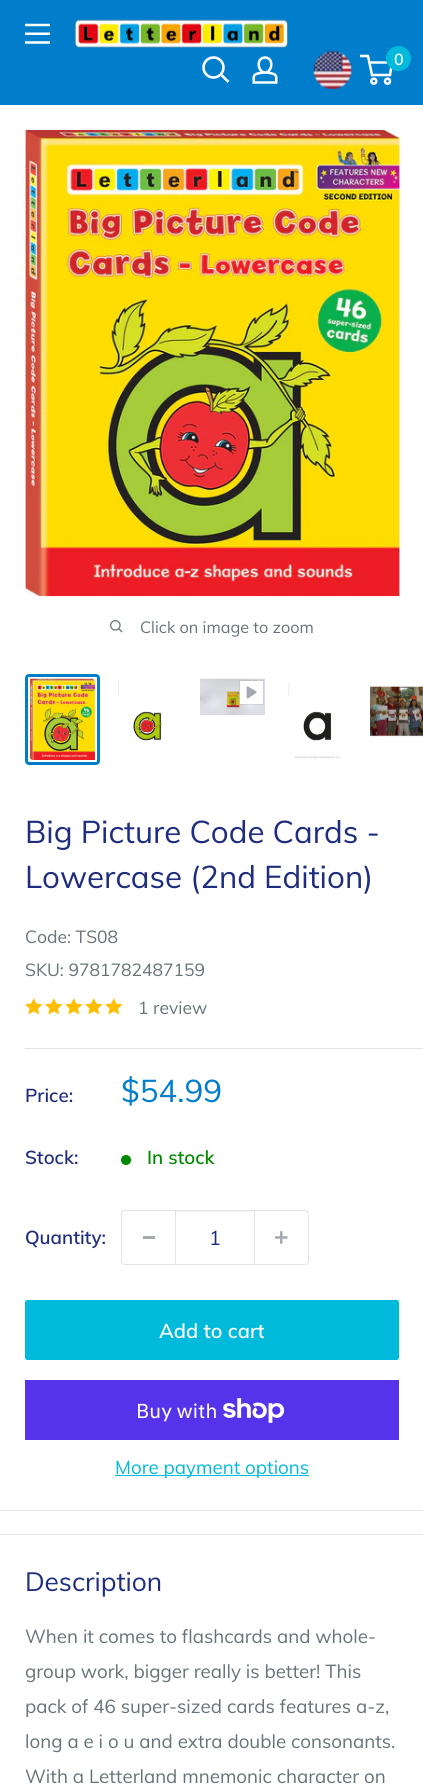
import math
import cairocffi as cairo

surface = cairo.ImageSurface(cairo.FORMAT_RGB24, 423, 1786)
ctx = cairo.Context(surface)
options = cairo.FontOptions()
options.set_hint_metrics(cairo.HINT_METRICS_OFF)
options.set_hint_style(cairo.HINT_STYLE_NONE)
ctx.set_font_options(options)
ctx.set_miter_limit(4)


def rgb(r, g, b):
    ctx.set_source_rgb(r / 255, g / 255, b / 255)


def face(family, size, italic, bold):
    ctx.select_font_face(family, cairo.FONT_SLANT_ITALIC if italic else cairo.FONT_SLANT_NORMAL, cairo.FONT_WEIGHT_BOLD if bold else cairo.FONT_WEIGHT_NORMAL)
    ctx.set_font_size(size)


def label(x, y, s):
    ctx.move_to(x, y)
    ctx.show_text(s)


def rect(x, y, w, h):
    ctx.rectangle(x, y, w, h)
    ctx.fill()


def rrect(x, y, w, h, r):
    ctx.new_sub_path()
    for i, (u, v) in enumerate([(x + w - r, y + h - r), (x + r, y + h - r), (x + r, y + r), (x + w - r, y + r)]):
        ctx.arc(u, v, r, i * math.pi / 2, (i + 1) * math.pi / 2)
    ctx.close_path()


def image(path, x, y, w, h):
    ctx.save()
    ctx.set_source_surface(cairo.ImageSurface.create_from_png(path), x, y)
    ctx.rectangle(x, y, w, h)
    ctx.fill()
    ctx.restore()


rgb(255, 255, 255)
ctx.paint()
rgb(0, 126, 204)
rect(0, 0, 423, 105)
image('image0.png', 25, 23, 25, 21)
image('image1.png', 75, 19, 213, 29)
ctx.new_path()
ctx.move_to(227.5, 81)
ctx.line_to(221, 74.5)
rgb(255, 255, 255)
ctx.set_line_width(2.6)
ctx.set_line_cap(cairo.LINE_CAP_SQUARE)
ctx.stroke()
ctx.arc(213.5, 67.5, 10, 0, 2 * math.pi)
ctx.set_line_cap(cairo.LINE_CAP_BUTT)
ctx.stroke()
image('image2.png', 252, 56, 26, 28)
image('image3.png', 313, 50, 39, 39)
ctx.arc(373.8, 81.2, 2.5, 0, 2 * math.pi)
ctx.set_line_width(2.5)
ctx.stroke()
ctx.arc(387.5, 81.2, 2.5, 0, 2 * math.pi)
ctx.stroke()
ctx.new_path()
ctx.move_to(369, 62.5)
ctx.line_to(392, 62.5)
ctx.line_to(390, 75)
ctx.line_to(372, 75)
ctx.line_to(368, 56)
ctx.line_to(360, 56)
ctx.stroke()
rgb(0, 186, 219)
ctx.arc(398.5, 58.5, 12.5, 0, 2 * math.pi)
ctx.fill()
face('Muli SemiBold', 16, 0, 0)
rgb(255, 255, 255)
label(394, 65, '0')
image('image4.png', 25, 130, 375, 467)
image('image5.png', 110, 620, 13, 13)
face('Muli', 16.25, 0, 0)
rgb(103, 114, 121)
label(140, 633, 'Click on image to zoom')
rrect(26.5, 675.5, 72, 88, 2.5)
rgb(0, 126, 204)
ctx.set_line_width(3)
ctx.stroke()
image('image6.png', 30, 678, 65, 82)
image('image7.png', 118, 682, 45, 60)
image('image8.png', 200, 678, 65, 37)
image('image9.png', 239, 680, 25, 25)
image('image10.png', 288, 682, 52, 77)
image('image11.png', 370, 685, 53, 53)
rgb(225, 227, 228)
rect(0, 1510, 423, 1)
face('Muli', 31.25, 0, 0)
rgb(30, 45, 125)
label(25, 843, 'Big Picture Code Cards -')
label(25, 888, 'Lowercase (2nd Edition)')
face('Muli', 17.5, 0, 0)
rgb(103, 114, 121)
label(25, 943, 'Code: TS08')
label(25, 976, 'SKU: 9781782487159')
image('image12.png', 25, 998, 18, 17)
image('image12.png', 45, 998, 18, 17)
image('image12.png', 65, 998, 18, 17)
image('image12.png', 85, 998, 18, 17)
image('image12.png', 105, 998, 18, 17)
label(138, 1014, '1 review')
rgb(225, 227, 228)
rect(25, 1048, 398, 1)
face('Muli SemiBold', 18.75, 0, 0)
rgb(30, 45, 125)
label(25, 1102, 'Price:')
face('Muli', 31.25, 0, 0)
rgb(0, 126, 204)
label(121, 1102, '$54.99')
face('Muli SemiBold', 18.75, 0, 0)
rgb(30, 45, 125)
label(25, 1164, 'Stock:')
rgb(0, 138, 0)
ctx.new_path()
ctx.arc(126, 1160, 5, 0, 2 * math.pi)
ctx.fill()
label(147, 1164, 'In stock')
rgb(30, 45, 125)
label(25, 1244, 'Quantity:')
rrect(121.5, 1210.5, 187, 54, 3.5)
rgb(225, 227, 228)
ctx.set_line_width(1)
ctx.stroke()
rgb(164, 170, 175)
rect(143, 1236, 12, 3)
rgb(243, 244, 244)
rect(176, 1211, 78, 1)
rgb(225, 227, 228)
rect(254, 1211, 1, 53)
rect(175, 1211, 1, 53)
face('Muli', 20, 0, 0)
rgb(30, 45, 125)
label(209, 1245, '1')
image('image13.png', 275, 1231, 13, 13)
rgb(0, 186, 219)
rrect(25, 1300, 374, 60, 2.5)
ctx.fill()
face('Muli SemiBold', 20, 0, 0)
rgb(255, 255, 255)
label(159, 1338, 'Add to cart')
rgb(84, 51, 235)
rect(25, 1380, 374, 60)
face('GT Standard', 20, 0, 0)
rgb(255, 255, 255)
label(136, 1418, 'Buy with')
image('image14.png', 223, 1398, 62, 25)
rgb(0, 186, 219)
rect(115, 1475, 194, 1)
face('Muli', 18.75, 0, 0)
label(115, 1474, 'More payment options')
rgb(225, 227, 228)
rect(0, 1534, 423, 1)
face('Muli', 26.25, 0, 0)
rgb(30, 45, 125)
label(25, 1591, 'Description')
face('Muli', 18.75, 0, 0)
rgb(103, 114, 121)
label(25, 1643, 'When it comes to flashcards and whole-')
label(25, 1678, 'group work, bigger really is better! This')
label(25, 1713, 'pack of 46 super-sized cards features a-z,')
label(25, 1748, 'long a e i o u and extra double consonants.')
label(25, 1783, 'With a Letterland mnemonic character on')
surface.write_to_png('render.png')
